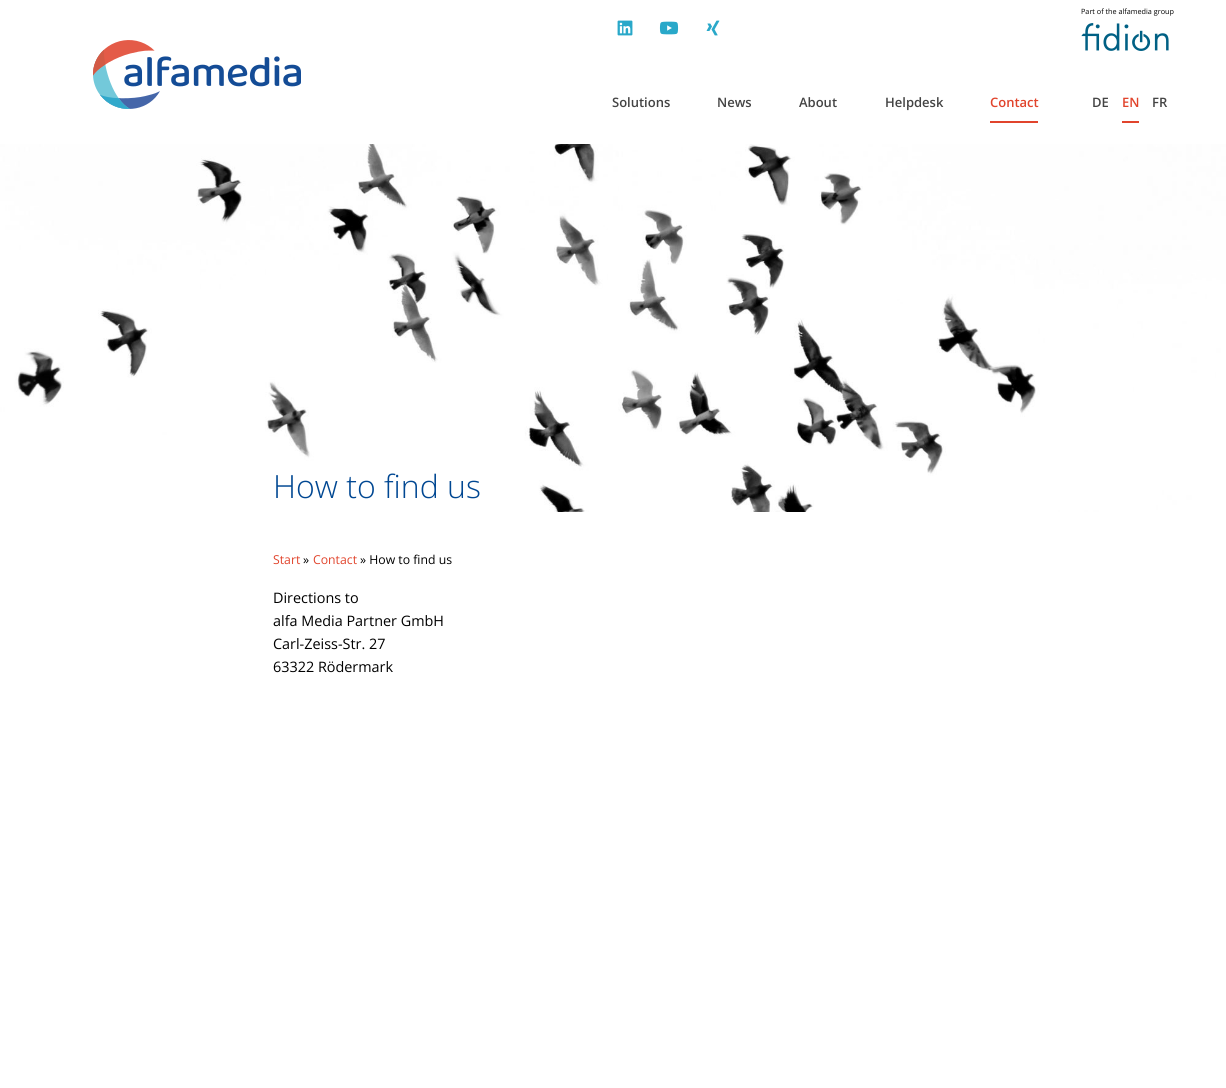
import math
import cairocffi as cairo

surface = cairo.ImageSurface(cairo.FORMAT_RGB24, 1226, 1088)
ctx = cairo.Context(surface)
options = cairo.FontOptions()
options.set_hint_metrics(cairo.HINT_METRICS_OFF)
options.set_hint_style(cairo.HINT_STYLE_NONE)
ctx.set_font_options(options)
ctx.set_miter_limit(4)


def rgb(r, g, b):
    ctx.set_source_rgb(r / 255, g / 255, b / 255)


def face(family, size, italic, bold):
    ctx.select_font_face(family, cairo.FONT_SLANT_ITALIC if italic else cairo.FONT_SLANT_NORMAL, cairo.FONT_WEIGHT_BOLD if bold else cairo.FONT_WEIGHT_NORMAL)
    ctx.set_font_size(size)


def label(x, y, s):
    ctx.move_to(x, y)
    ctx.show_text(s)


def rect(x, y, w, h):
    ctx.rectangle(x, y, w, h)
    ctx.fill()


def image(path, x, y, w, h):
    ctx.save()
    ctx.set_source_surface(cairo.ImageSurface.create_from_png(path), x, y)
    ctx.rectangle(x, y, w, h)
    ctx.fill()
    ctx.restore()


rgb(255, 255, 255)
ctx.paint()
image('image0.png', 93, 40, 208, 69)
face('Open Sans', 7.25, 0, 0)
rgb(0, 0, 0)
label(1081, 14, 'Part of the alfamedia group')
image('image1.png', 1081, 23, 88, 28)
image('image2.png', 617, 20, 16, 16)
image('image3.png', 659, 21, 20, 14)
image('image4.png', 706, 20, 14, 16)
face('Open Sans SemiBold', 13, 0, 0)
rgb(68, 68, 68)
label(612, 107, 'Solutions')
label(717, 107, 'News')
label(799, 107, 'About')
label(885, 107, 'Helpdesk')
rgb(225, 68, 44)
label(990, 107, 'Contact')
rect(990, 121, 48, 2)
rgb(68, 68, 68)
label(1092, 107, 'DE')
rgb(225, 68, 44)
label(1122, 107, 'EN')
rect(1122, 121, 17, 2)
rgb(68, 68, 68)
label(1152, 107, 'FR')
image('image5.png', 0, 144, 1226, 368)
rgb(255, 255, 255)
rect(304, 460, 2, 1)
face('Open Sans Light', 32, 0, 0)
rgb(0, 71, 146)
label(273, 498, 'How to find us')
face('Open Sans', 12.25, 0, 0)
rgb(225, 68, 44)
label(273, 564, 'Start')
rgb(0, 0, 0)
label(303, 564, '»')
rgb(225, 68, 44)
label(313, 564, 'Contact')
rgb(0, 0, 0)
label(360, 564, '» How to find us')
face('Open Sans', 14.4, 0, 0)
label(273, 603, 'Directions to')
label(273, 626, 'alfa Media Partner GmbH')
label(273, 649, 'Carl-Zeiss-Str. 27')
label(273, 672, '63322 Rödermark')
surface.write_to_png('render.png')
